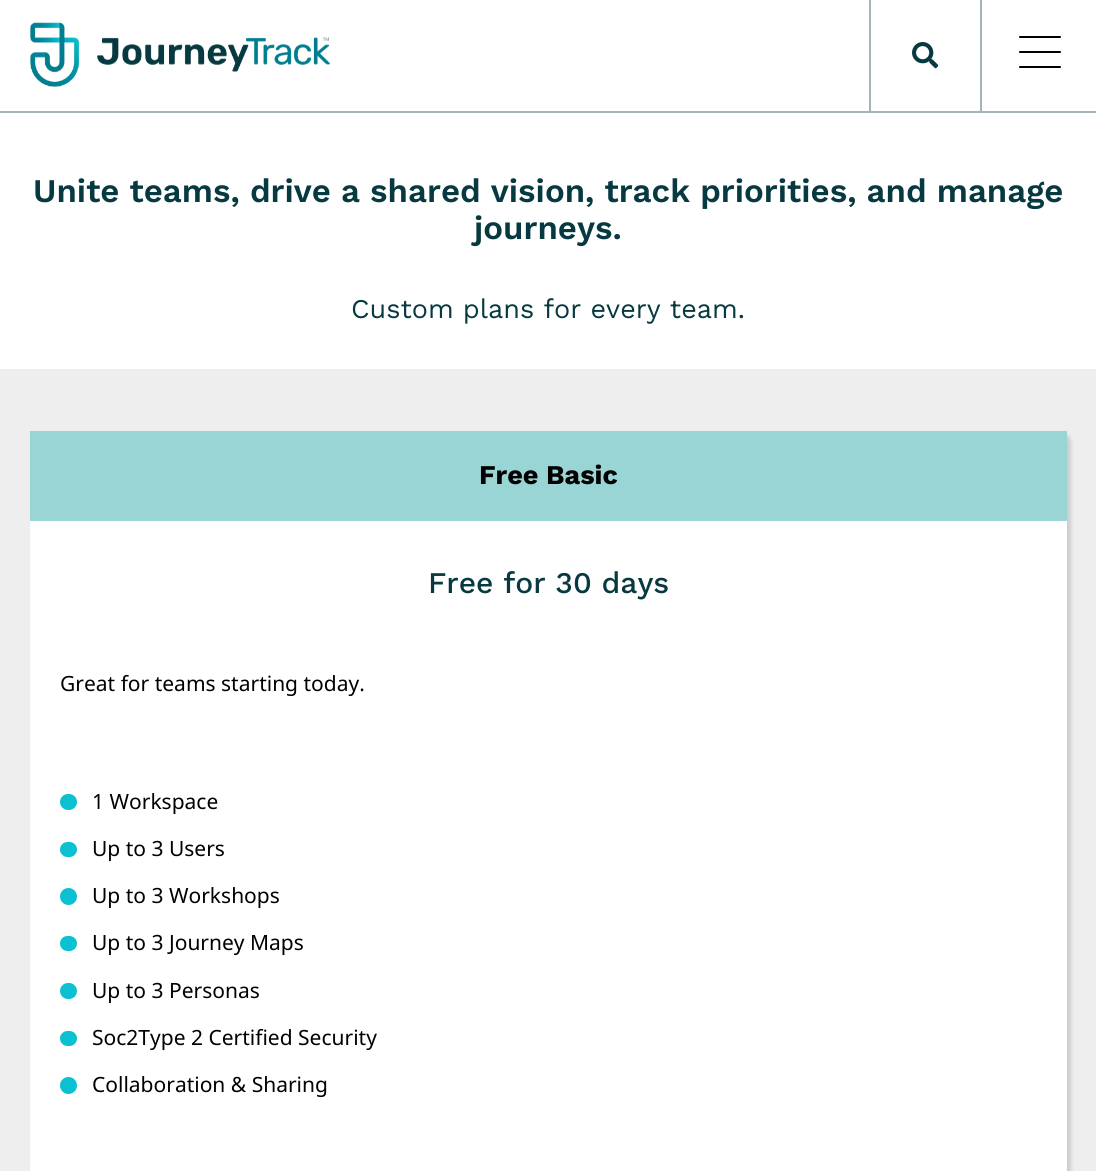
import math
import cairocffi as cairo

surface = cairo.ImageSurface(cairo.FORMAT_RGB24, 1096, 1171)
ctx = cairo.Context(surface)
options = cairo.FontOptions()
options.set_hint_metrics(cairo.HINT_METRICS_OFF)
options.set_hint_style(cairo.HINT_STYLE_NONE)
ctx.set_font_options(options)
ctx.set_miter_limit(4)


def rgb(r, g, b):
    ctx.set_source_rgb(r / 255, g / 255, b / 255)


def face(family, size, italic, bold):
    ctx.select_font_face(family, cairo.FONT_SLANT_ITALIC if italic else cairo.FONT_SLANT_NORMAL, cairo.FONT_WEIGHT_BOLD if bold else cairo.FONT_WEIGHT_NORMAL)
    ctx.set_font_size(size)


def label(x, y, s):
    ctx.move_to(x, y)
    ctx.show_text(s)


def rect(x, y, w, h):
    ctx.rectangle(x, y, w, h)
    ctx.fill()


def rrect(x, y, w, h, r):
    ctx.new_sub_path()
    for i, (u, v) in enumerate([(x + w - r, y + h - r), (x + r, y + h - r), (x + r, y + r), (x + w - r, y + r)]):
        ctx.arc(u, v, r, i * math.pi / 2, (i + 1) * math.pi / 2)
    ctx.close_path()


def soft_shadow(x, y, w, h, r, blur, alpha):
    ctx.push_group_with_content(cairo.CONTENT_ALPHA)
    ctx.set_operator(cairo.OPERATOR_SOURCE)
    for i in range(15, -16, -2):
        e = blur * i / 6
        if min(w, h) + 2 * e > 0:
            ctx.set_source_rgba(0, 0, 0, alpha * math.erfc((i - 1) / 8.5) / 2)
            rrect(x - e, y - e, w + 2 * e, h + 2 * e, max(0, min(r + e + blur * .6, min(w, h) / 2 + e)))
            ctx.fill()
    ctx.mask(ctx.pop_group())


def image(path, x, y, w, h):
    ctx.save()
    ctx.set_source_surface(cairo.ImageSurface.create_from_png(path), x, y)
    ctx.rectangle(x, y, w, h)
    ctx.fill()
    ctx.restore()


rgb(255, 255, 255)
ctx.paint()
rgb(162, 180, 183)
rect(0, 111, 1096, 2)
image('image0.png', 30, 22, 300, 65)
rect(980, 0, 2, 111)
rect(869, 0, 2, 111)
image('image1.png', 912, 42, 26, 27)
rgb(0, 0, 0)
rrect(1019, 51, 42, 2, 1)
ctx.fill()
rrect(1019, 36, 42, 2, 1)
ctx.fill()
rrect(1019, 66, 42, 2, 1)
ctx.fill()
face('Work Sans SemiBold', 33, 0, 0)
rgb(7, 57, 64)
label(33, 202, 'Unite teams, drive a shared vision, track priorities, and manage')
label(474, 239, 'journeys.')
face('Work Sans', 27, 0, 0)
label(351, 318, 'Custom plans for every team.')
rgb(238, 238, 238)
rect(0, 369, 1096, 802)
rgb(204, 204, 204)
soft_shadow(35, 434, 1036, 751, 8, 2, 1)
rgb(255, 255, 255)
rect(30, 521, 1037, 650)
rgb(153, 213, 213)
rect(30, 431, 1037, 90)
face('Work Sans', 27, 0, 1)
rgb(0, 0, 0)
label(479, 484, 'Free Basic')
face('Work Sans Medium', 30, 0, 0)
rgb(7, 57, 64)
label(428, 593, 'Free for 30 days')
face('Noto Sans', 21, 0, 0)
rgb(0, 0, 0)
label(60, 691, 'Great for teams starting today.')
rgb(11, 192, 208)
rrect(60, 794, 17, 16, 8)
ctx.fill()
rgb(0, 0, 0)
label(92, 809, '1 Workspace')
rgb(11, 192, 208)
rrect(60, 842, 17, 15, 7.5)
ctx.fill()
rgb(0, 0, 0)
label(92, 856, 'Up to 3 Users')
rgb(11, 192, 208)
ctx.new_path()
ctx.arc(68.5, 896.5, 8.5, 0, 2 * math.pi)
ctx.fill()
rgb(0, 0, 0)
label(92, 903, 'Up to 3 Workshops')
rgb(11, 192, 208)
rrect(60, 936, 17, 15, 7.5)
ctx.fill()
rgb(0, 0, 0)
label(92, 950, 'Up to 3 Journey Maps')
rgb(11, 192, 208)
rrect(60, 983, 17, 16, 8)
ctx.fill()
rgb(0, 0, 0)
label(92, 998, 'Up to 3 Personas')
rgb(11, 192, 208)
rrect(60, 1031, 17, 15, 7.5)
ctx.fill()
rgb(0, 0, 0)
label(92, 1045, 'Soc2Type 2 Certified Security')
rgb(11, 192, 208)
ctx.new_path()
ctx.arc(68.5, 1085.5, 8.5, 0, 2 * math.pi)
ctx.fill()
rgb(0, 0, 0)
label(92, 1092, 'Collaboration & Sharing')
surface.write_to_png('render.png')
